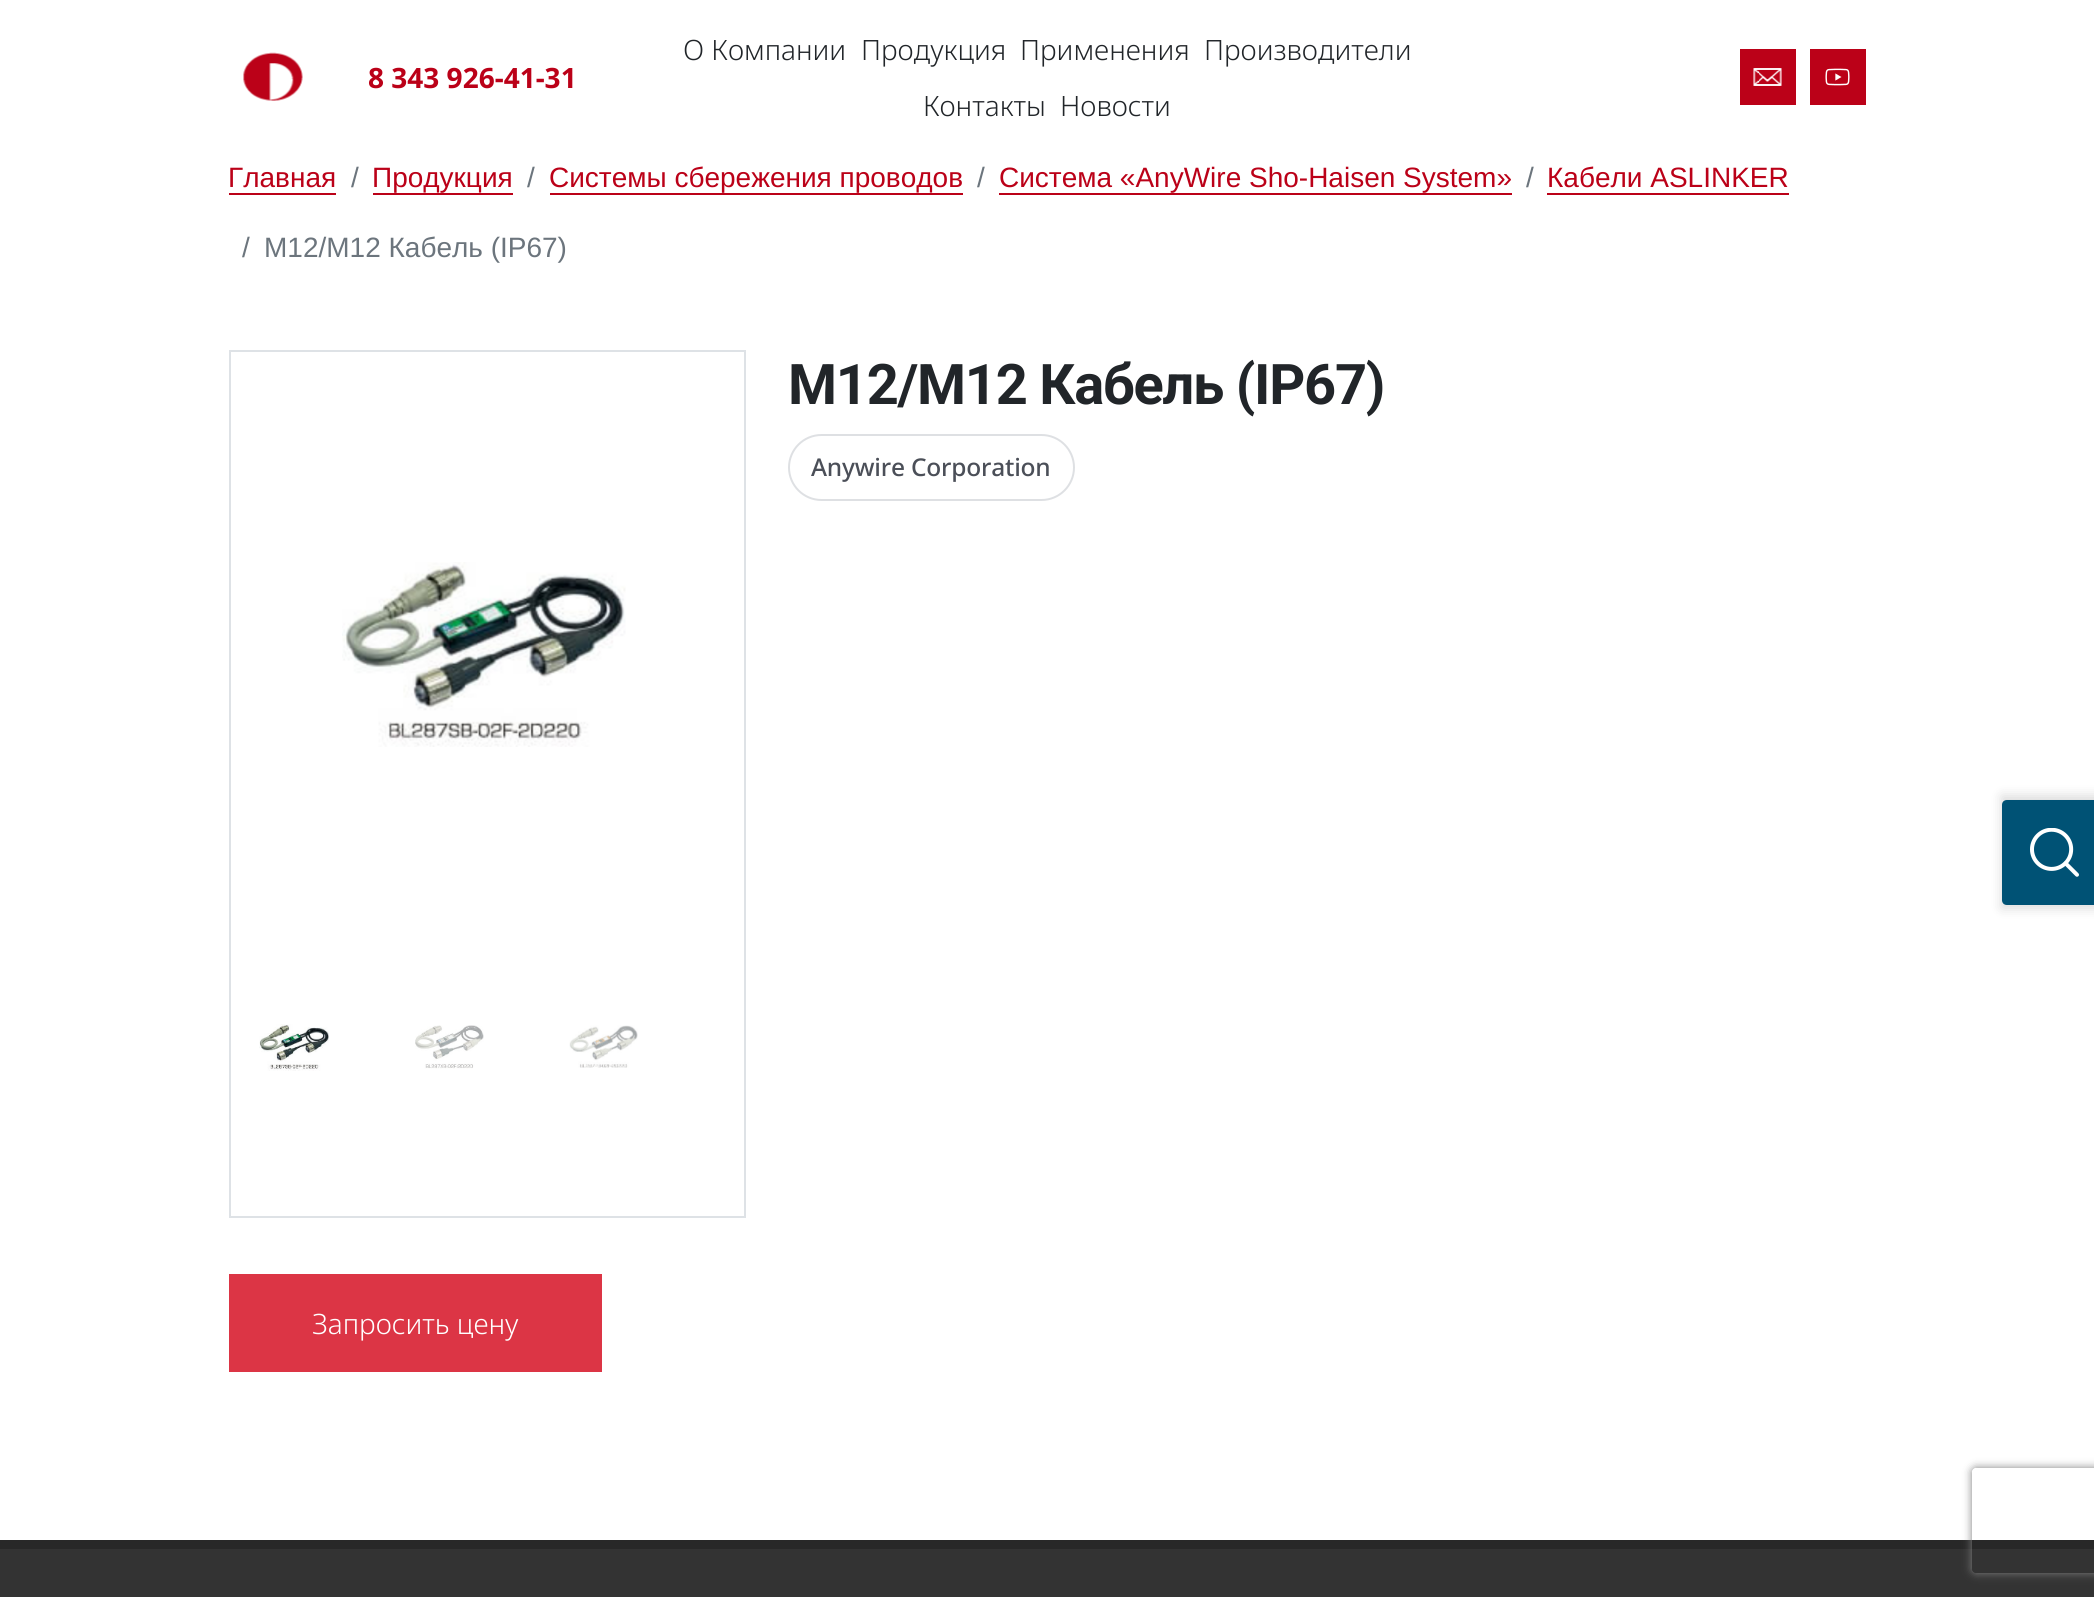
import math
import cairocffi as cairo

surface = cairo.ImageSurface(cairo.FORMAT_RGB24, 2094, 1597)
ctx = cairo.Context(surface)
options = cairo.FontOptions()
options.set_hint_metrics(cairo.HINT_METRICS_OFF)
options.set_hint_style(cairo.HINT_STYLE_NONE)
ctx.set_font_options(options)
ctx.set_miter_limit(4)


def rgb(r, g, b):
    ctx.set_source_rgb(r / 255, g / 255, b / 255)


def face(family, size, italic, bold):
    ctx.select_font_face(family, cairo.FONT_SLANT_ITALIC if italic else cairo.FONT_SLANT_NORMAL, cairo.FONT_WEIGHT_BOLD if bold else cairo.FONT_WEIGHT_NORMAL)
    ctx.set_font_size(size)


def label(x, y, s):
    ctx.move_to(x, y)
    ctx.show_text(s)


def tracked(x, y, s, letter, word):
    ctx.move_to(x, y)
    for ch in s:
        ctx.show_text(ch)
        ctx.rel_move_to(letter + word * (ch == ' '), 0)


def rect(x, y, w, h):
    ctx.rectangle(x, y, w, h)
    ctx.fill()


def rrect(x, y, w, h, r):
    ctx.new_sub_path()
    for i, (u, v) in enumerate([(x + w - r, y + h - r), (x + r, y + h - r), (x + r, y + r), (x + w - r, y + r)]):
        ctx.arc(u, v, r, i * math.pi / 2, (i + 1) * math.pi / 2)
    ctx.close_path()


def soft_shadow(x, y, w, h, r, blur, alpha):
    ctx.push_group_with_content(cairo.CONTENT_ALPHA)
    ctx.set_operator(cairo.OPERATOR_SOURCE)
    for i in range(15, -16, -2):
        e = blur * i / 6
        if min(w, h) + 2 * e > 0:
            ctx.set_source_rgba(0, 0, 0, alpha * math.erfc((i - 1) / 8.5) / 2)
            rrect(x - e, y - e, w + 2 * e, h + 2 * e, max(0, min(r + e + blur * .6, min(w, h) / 2 + e)))
            ctx.fill()
    ctx.mask(ctx.pop_group())


def image(path, x, y, w, h):
    ctx.save()
    ctx.set_source_surface(cairo.ImageSurface.create_from_png(path), x, y)
    ctx.rectangle(x, y, w, h)
    ctx.fill()
    ctx.restore()


rgb(255, 255, 255)
ctx.paint()
image('image0.png', 243, 52, 60, 49)
face('Noto Sans', 28, 0, 1)
rgb(187, 1, 24)
label(368, 88, '8 343 926-41-31')
face('Noto Sans Light', 28, 0, 0)
rgb(33, 37, 41)
label(683, 60, 'О Компании')
label(861, 60, 'Продукция')
label(1020, 60, 'Применения')
label(1204, 60, 'Производители')
label(923, 116, 'Контакты')
label(1060, 116, 'Новости')
rgb(187, 1, 24)
rect(1740, 49, 56, 56)
image('image1.png', 1753, 68, 29, 18)
rect(1810, 49, 56, 56)
image('image2.png', 1825, 68, 25, 18)
face('Liberation Sans', 28, 0, 0)
label(228, 187, 'Главная')
rect(229, 193, 107, 2)
rgb(108, 117, 125)
label(351, 187, '/')
rgb(187, 1, 24)
label(372, 187, 'Продукция')
rect(373, 193, 140, 2)
rgb(108, 117, 125)
label(527, 187, '/')
rgb(187, 1, 24)
label(549, 187, 'Системы сбережения проводов')
rect(550, 193, 413, 2)
rgb(108, 117, 125)
label(977, 187, '/')
rgb(187, 1, 24)
label(999, 187, 'Система «AnyWire Sho-Haisen System»')
rect(999, 193, 513, 2)
rgb(108, 117, 125)
label(1526, 187, '/')
rgb(187, 1, 24)
label(1547, 187, 'Кабели ASLINKER')
rect(1547, 193, 242, 2)
rgb(108, 117, 125)
label(242, 257, '/')
label(264, 257, 'M12/M12 Кабель (IP67)')
face('Roboto', 56, 0, 1)
rgb(33, 37, 41)
tracked(788, 404, 'M12/M12 Кабель (IP67)', -1.25, 0)
rrect(789, 435, 285, 65, 32.5)
rgb(222, 224, 227)
ctx.stroke()
face('Noto Sans Medium', 24.5, 0, 0)
rgb(75, 79, 88)
tracked(811, 476, 'Anywire Corporation', -0.2, 0)
ctx.rectangle(230, 351, 515, 866)
rgb(222, 226, 230)
ctx.stroke()
image('image3.png', 342, 562, 284, 185)
image('image4.png', 259, 1024, 70, 47)
image('image5.png', 415, 1025, 69, 44)
image('image6.png', 569, 1025, 69, 43)
rgb(220, 53, 69)
rect(229, 1274, 373, 98)
face('Noto Sans Light', 28, 0, 0)
rgb(255, 255, 255)
label(312, 1334, 'Запросить цену')
rgb(0, 0, 0)
soft_shadow(2002, 796, 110, 112, 0, 6, 0.15)
rgb(0, 82, 117)
ctx.new_path()
ctx.move_to(2007, 800)
ctx.line_to(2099, 800)
ctx.line_to(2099, 905)
ctx.line_to(2007, 905)
ctx.curve_to(2004, 905, 2002, 903, 2002, 900)
ctx.line_to(2002, 805)
ctx.curve_to(2002, 802, 2004, 800, 2007, 800)
ctx.close_path()
ctx.fill()
image('image7.png', 2030, 828, 49, 49)
rgb(51, 51, 51)
rect(0, 1549, 2094, 48)
rgb(40, 40, 40)
rect(0, 1540, 2094, 9)
ctx.save()
ctx.set_fill_rule(cairo.FILL_RULE_EVEN_ODD)
ctx.new_path()
ctx.move_to(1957, 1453)
ctx.line_to(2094, 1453)
ctx.line_to(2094, 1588)
ctx.line_to(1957, 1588)
ctx.close_path()
ctx.move_to(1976, 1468)
ctx.line_to(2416, 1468)
ctx.curve_to(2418, 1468, 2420, 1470, 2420, 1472)
ctx.line_to(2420, 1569)
ctx.curve_to(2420, 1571, 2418, 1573, 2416, 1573)
ctx.line_to(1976, 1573)
ctx.curve_to(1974, 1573, 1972, 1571, 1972, 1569)
ctx.line_to(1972, 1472)
ctx.curve_to(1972, 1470, 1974, 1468, 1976, 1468)
ctx.close_path()
ctx.clip()
rgb(128, 128, 128)
soft_shadow(1972, 1468, 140, 105, 4, 4.5, 1)
ctx.restore()
surface.write_to_png('render.png')
